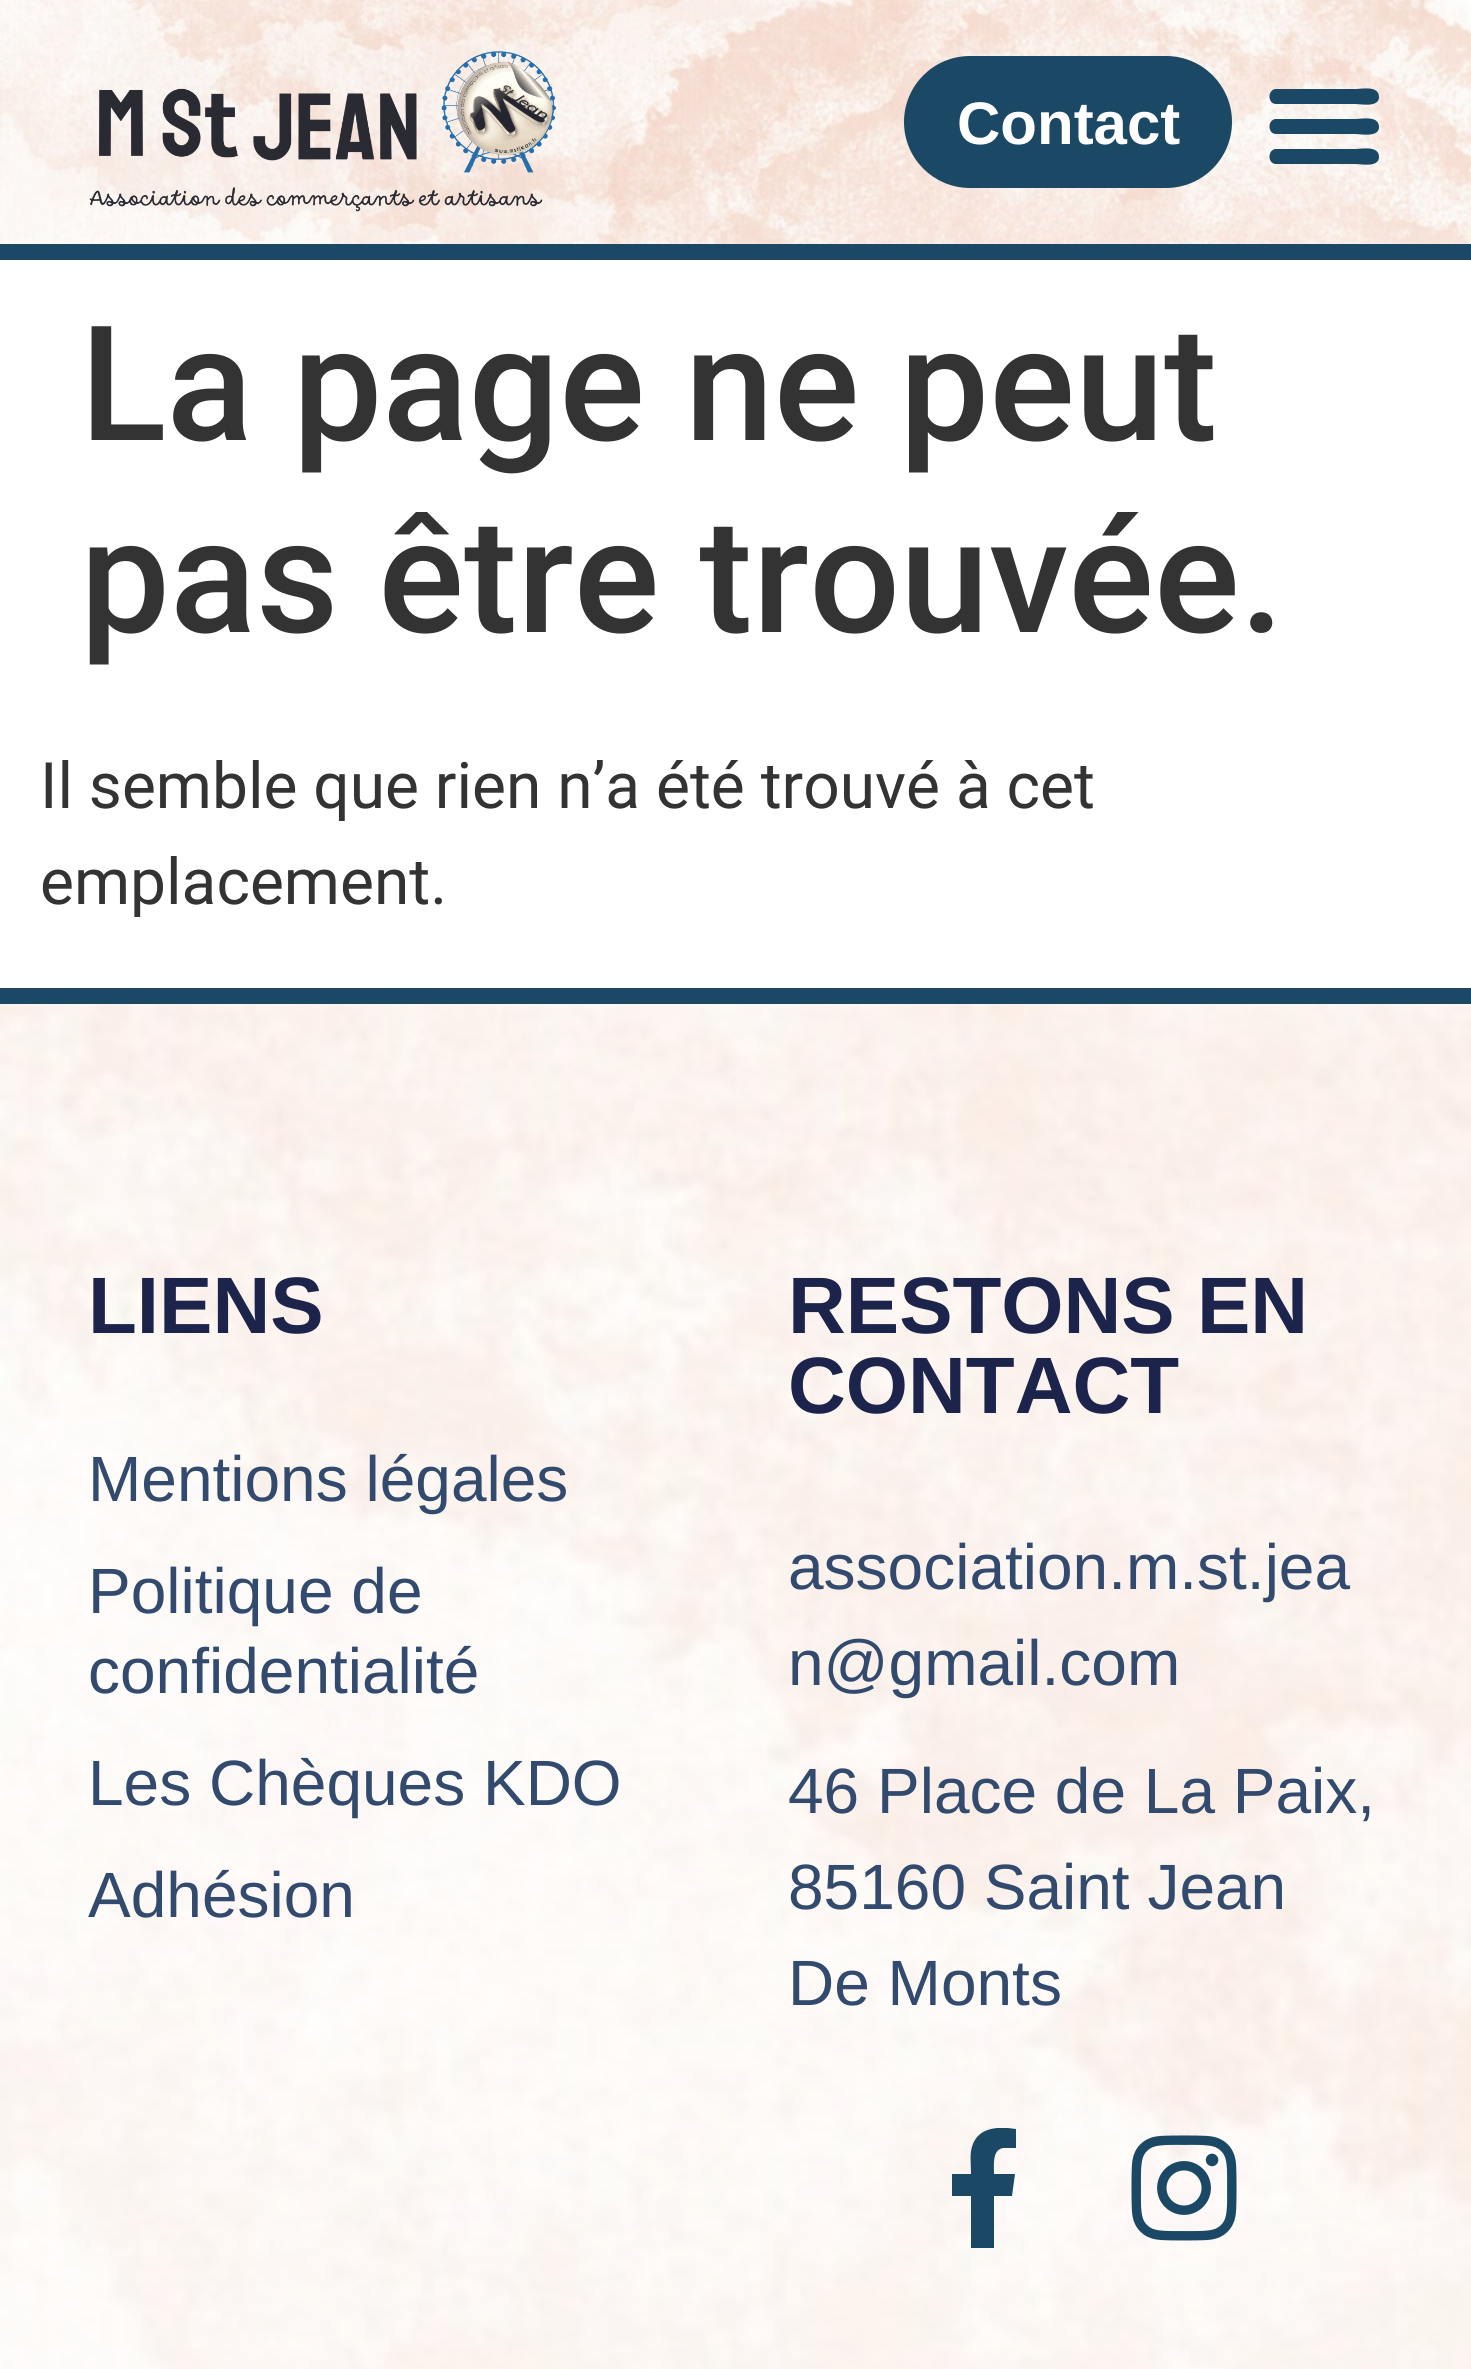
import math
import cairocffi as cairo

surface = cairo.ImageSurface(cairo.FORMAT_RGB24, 1471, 2369)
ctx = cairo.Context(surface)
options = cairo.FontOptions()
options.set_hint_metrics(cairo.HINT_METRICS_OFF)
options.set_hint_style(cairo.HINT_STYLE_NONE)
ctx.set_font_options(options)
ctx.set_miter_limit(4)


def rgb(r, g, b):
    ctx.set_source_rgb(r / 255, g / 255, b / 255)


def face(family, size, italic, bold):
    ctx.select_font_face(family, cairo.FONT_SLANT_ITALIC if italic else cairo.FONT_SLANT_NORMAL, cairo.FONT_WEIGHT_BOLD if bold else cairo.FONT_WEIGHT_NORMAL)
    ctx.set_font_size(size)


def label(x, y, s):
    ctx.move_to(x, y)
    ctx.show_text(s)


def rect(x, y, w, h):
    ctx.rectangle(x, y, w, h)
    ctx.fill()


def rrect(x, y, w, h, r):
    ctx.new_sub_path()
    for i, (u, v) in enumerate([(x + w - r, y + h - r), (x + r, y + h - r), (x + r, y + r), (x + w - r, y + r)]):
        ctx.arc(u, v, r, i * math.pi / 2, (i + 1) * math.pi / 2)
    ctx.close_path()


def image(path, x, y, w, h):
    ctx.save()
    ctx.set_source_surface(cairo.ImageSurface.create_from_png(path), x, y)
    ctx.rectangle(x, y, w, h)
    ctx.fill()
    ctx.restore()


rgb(255, 255, 255)
ctx.paint()
image('image0.png', 0, 0, 1471, 244)
rgb(27, 73, 101)
rect(0, 244, 1471, 16)
image('image1.png', 89, 51, 468, 161)
rrect(906, 58, 324, 128, 64)
ctx.fill_preserve()
ctx.set_line_width(4)
ctx.stroke()
face('Liberation Sans', 60, 0, 1)
rgb(255, 255, 255)
label(957, 144, 'Contact')
rgb(27, 73, 101)
ctx.new_path()
ctx.move_to(1276, 104)
ctx.line_to(1356, 104)
ctx.curve_to(1360, 104, 1379, 108, 1379, 97)
ctx.curve_to(1379, 85, 1361, 89, 1356, 89)
ctx.line_to(1275, 89)
ctx.curve_to(1267, 91, 1268, 104, 1276, 104)
ctx.close_path()
ctx.move_to(1276, 134)
ctx.line_to(1356, 134)
ctx.curve_to(1360, 134, 1379, 138, 1379, 127)
ctx.curve_to(1379, 115, 1361, 119, 1356, 119)
ctx.line_to(1275, 119)
ctx.curve_to(1267, 121, 1268, 134, 1276, 134)
ctx.close_path()
ctx.move_to(1276, 164)
ctx.line_to(1356, 164)
ctx.curve_to(1360, 164, 1379, 168, 1379, 157)
ctx.curve_to(1379, 145, 1361, 149, 1356, 149)
ctx.line_to(1275, 149)
ctx.curve_to(1267, 151, 1268, 164, 1276, 164)
ctx.close_path()
ctx.fill()
face('Roboto Medium', 160, 0, 0)
rgb(51, 51, 51)
label(80, 440, 'La page ne peut')
label(80, 632, 'pas être trouvée.')
face('Roboto', 64, 0, 0)
label(40, 808, 'Il semble que rien n’a été trouvé à cet')
label(40, 904, 'emplacement.')
image('image2.png', 0, 1004, 1471, 1365)
rgb(27, 73, 101)
rect(0, 988, 1471, 16)
face('Liberation Sans', 80, 0, 1)
rgb(28, 36, 75)
label(88, 1333, 'LIENS')
face('Liberation Sans', 64, 0, 0)
rgb(50, 74, 109)
label(88, 1501, 'Mentions légales')
label(88, 1613, 'Politique de')
label(88, 1693, 'confidentialité')
label(88, 1805, 'Les Chèques KDO')
label(88, 1917, 'Adhésion')
face('Liberation Sans', 80, 0, 1)
rgb(28, 36, 75)
label(788, 1333, 'RESTONS EN')
label(788, 1413, 'CONTACT')
face('Liberation Sans', 64, 0, 0)
rgb(50, 74, 109)
label(788, 1589, 'association.m.st.jea')
label(788, 1685, 'n@gmail.com')
label(788, 1813, '46 Place de La Paix,')
label(788, 1909, '85160 Saint Jean')
label(788, 2005, 'De Monts')
ctx.save()
ctx.rectangle(924, 2128, 120, 120)
ctx.clip()
rgb(27, 73, 101)
ctx.new_path()
ctx.move_to(1012, 2196)
ctx.line_to(1015, 2174)
ctx.line_to(994, 2174)
ctx.curve_to(994, 2165, 992, 2150, 1003, 2148)
ctx.line_to(1016, 2148)
ctx.line_to(1016, 2129)
ctx.curve_to(997, 2126, 975, 2127, 971, 2151)
ctx.curve_to(970, 2158, 971, 2166, 971, 2174)
ctx.line_to(952, 2174)
ctx.line_to(952, 2196)
ctx.line_to(971, 2196)
ctx.line_to(971, 2248)
ctx.line_to(994, 2248)
ctx.line_to(994, 2196)
ctx.close_path()
ctx.fill()
ctx.restore()
image('image3.png', 1131, 2135, 106, 106)
surface.write_to_png('render.png')
